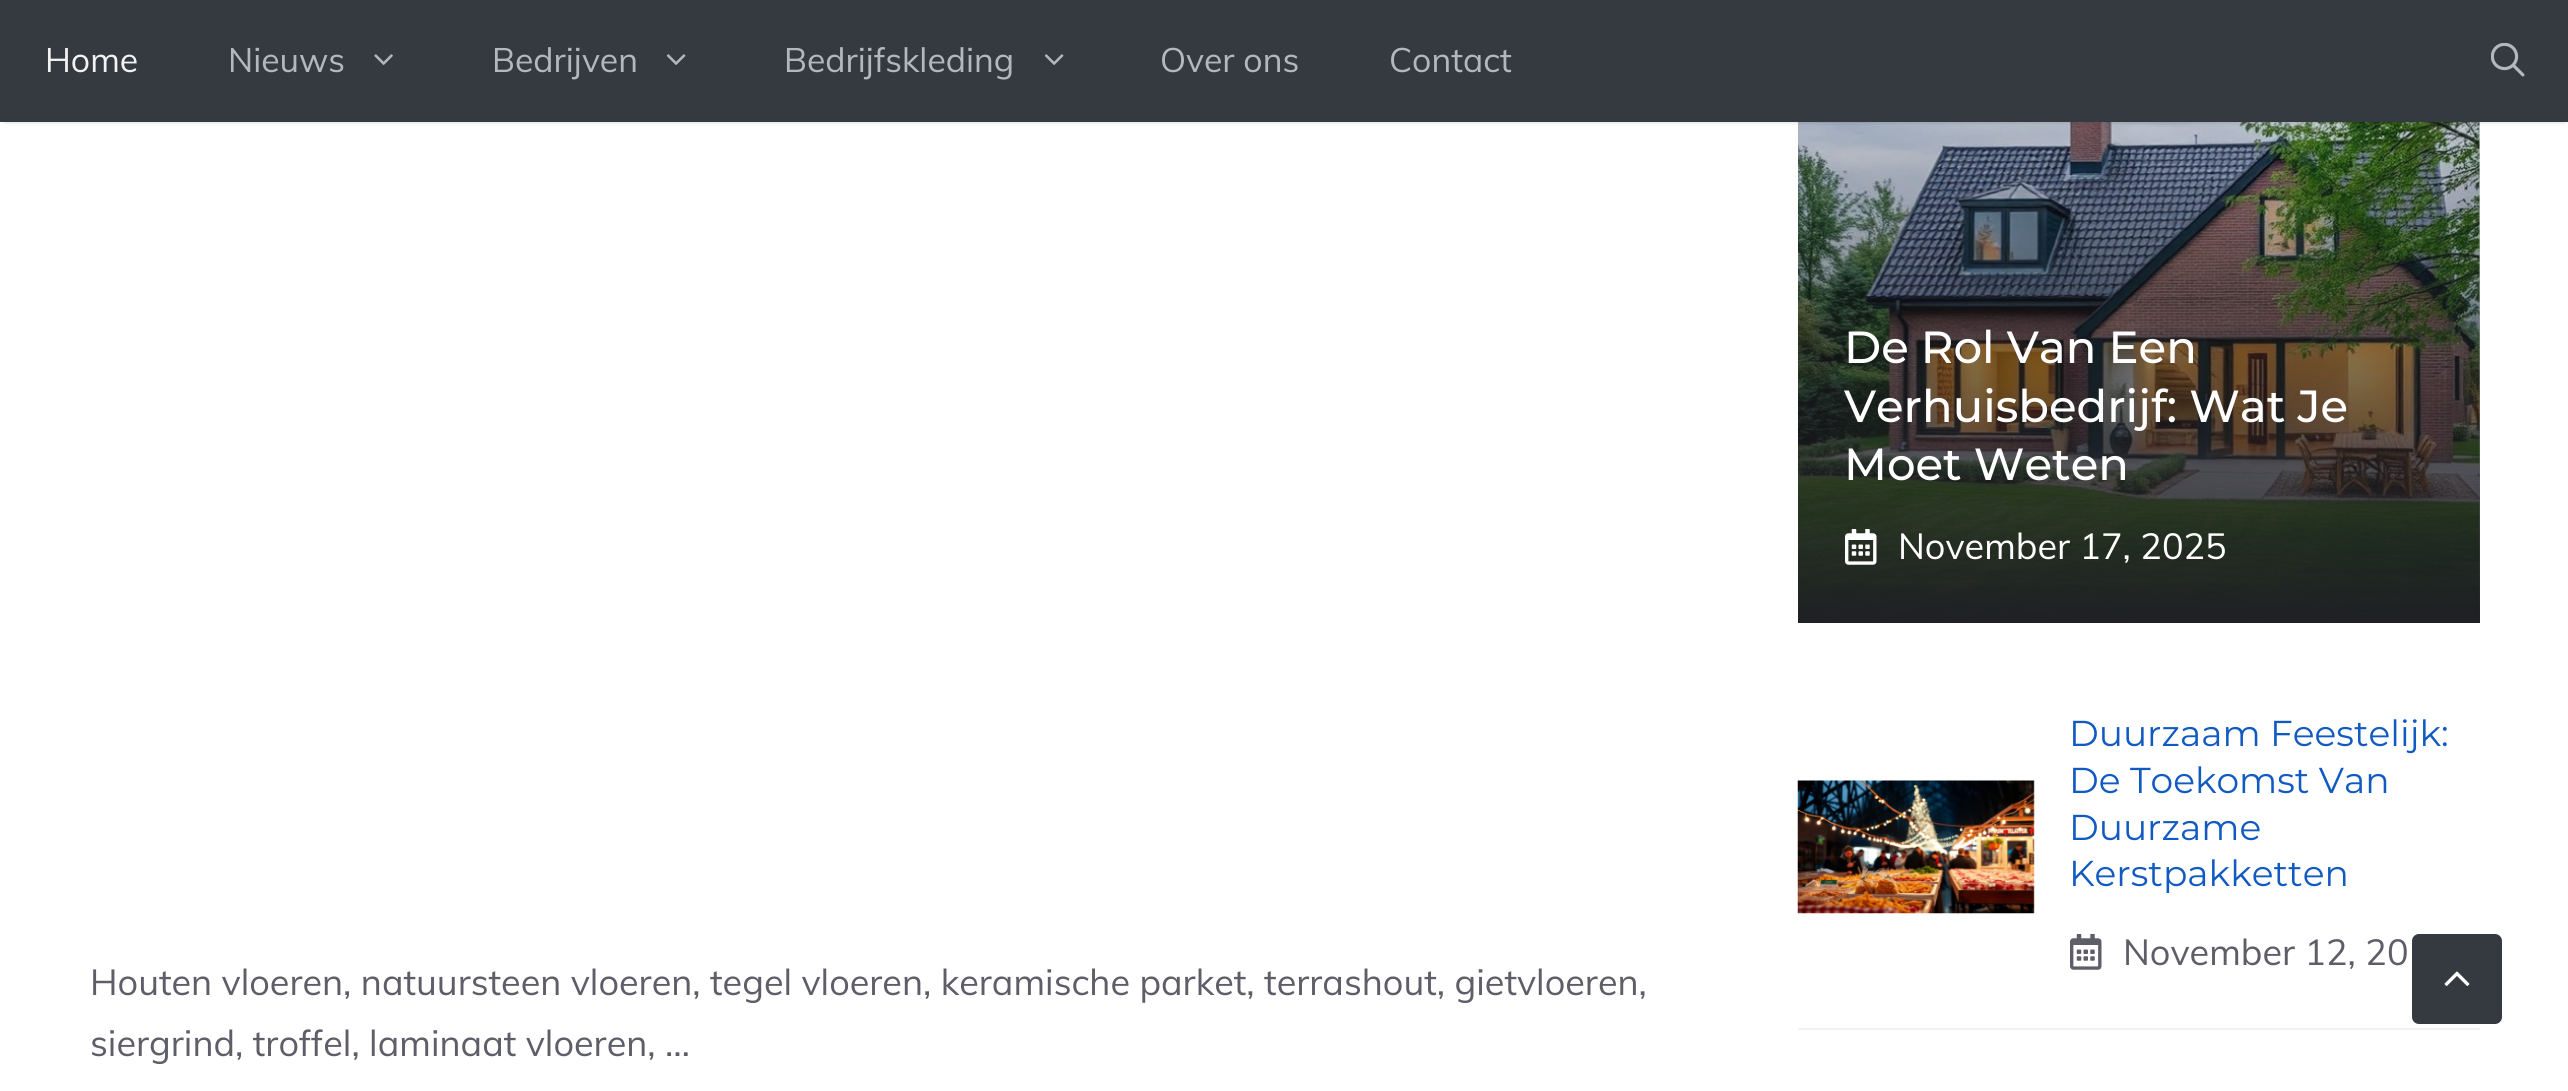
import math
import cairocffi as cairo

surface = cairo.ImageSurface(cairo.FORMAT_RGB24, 2568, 1091)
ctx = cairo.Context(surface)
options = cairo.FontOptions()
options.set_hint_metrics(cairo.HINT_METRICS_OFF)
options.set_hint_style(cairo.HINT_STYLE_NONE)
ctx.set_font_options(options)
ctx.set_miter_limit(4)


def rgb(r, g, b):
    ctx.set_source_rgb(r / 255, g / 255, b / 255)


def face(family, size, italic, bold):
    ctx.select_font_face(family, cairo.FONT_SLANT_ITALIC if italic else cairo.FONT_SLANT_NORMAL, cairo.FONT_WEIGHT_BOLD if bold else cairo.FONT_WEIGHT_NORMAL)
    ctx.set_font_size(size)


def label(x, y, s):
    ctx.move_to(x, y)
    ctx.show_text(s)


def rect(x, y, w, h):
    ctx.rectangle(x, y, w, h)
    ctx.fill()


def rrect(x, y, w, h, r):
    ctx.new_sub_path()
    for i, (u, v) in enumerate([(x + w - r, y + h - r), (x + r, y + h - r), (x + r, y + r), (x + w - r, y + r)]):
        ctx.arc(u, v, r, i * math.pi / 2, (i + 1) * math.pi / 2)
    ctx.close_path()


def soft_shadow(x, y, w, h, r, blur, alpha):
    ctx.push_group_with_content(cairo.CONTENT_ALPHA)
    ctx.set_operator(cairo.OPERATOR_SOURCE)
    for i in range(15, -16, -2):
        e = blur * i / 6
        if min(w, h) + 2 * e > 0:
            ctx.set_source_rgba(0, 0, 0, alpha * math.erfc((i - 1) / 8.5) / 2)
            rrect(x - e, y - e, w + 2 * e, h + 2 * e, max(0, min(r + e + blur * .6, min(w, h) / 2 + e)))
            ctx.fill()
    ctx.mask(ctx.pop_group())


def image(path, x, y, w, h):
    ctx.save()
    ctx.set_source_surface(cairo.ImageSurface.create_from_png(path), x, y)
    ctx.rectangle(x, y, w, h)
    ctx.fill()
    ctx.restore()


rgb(255, 255, 255)
ctx.paint()
image('image3.png', 1798, 122, 682, 498)
gradient = cairo.LinearGradient(2139, 38, 2139, 623)
gradient.add_color_stop_rgba(0, 0.122, 0.125, 0.141, 0)
gradient.add_color_stop_rgba(1, 0.122, 0.125, 0.141, 1)
ctx.set_source(gradient)
rect(1798, 122, 682, 501)
rgb(0, 0, 0)
soft_shadow(5, 9, 2560, 113, 0, 2, 0.2)
rgb(52, 58, 64)
rect(0, 0, 2568, 122)
face('Muli', 33.75, 0, 0)
rgb(242, 242, 242)
label(45, 72, 'Home')
rgb(181, 183, 191)
label(228, 72, 'Nieuws')
image('image0.png', 374, 54, 19, 11)
label(492, 72, 'Bedrijven')
image('image1.png', 666, 54, 20, 11)
label(784, 72, 'Bedrijfskleding')
image('image1.png', 1044, 54, 20, 11)
label(1160, 72, 'Over ons')
label(1389, 72, 'Contact')
image('image2.png', 2491, 43, 34, 34)
face('Montserrat Medium', 45, 0, 0)
rgb(255, 255, 255)
label(1844, 363, 'De Rol Van Een')
label(1844, 422, 'Verhuisbedrijf: Wat Je')
label(1844, 480, 'Moet Weten')
image('image4.png', 1845, 529, 32, 36)
face('Muli', 36, 0, 0)
label(1898, 559, 'November 17, 2025')
rgb(242, 242, 242)
rect(1798, 1028, 682, 2)
image('image5.png', 1797, 780, 238, 134)
face('Montserrat', 36, 0, 0)
rgb(17, 90, 193)
label(2069, 746, 'Duurzaam Feestelijk:')
label(2069, 793, 'De Toekomst Van')
label(2069, 840, 'Duurzame')
label(2069, 886, 'Kerstpakketten')
image('image6.png', 2070, 934, 32, 36)
face('Muli', 36, 0, 0)
rgb(94, 94, 105)
label(2123, 965, 'November 12, 20')
label(90, 995, 'Houten vloeren, natuursteen vloeren, tegel vloeren, keramische parket, terrashout, gietvloeren,')
label(90, 1056, 'siergrind, troffel, laminaat vloeren, …')
rgb(52, 58, 64)
rrect(2412, 934, 90, 90, 7)
ctx.fill()
image('image7.png', 2444, 971, 26, 15)
surface.write_to_png('render.png')
